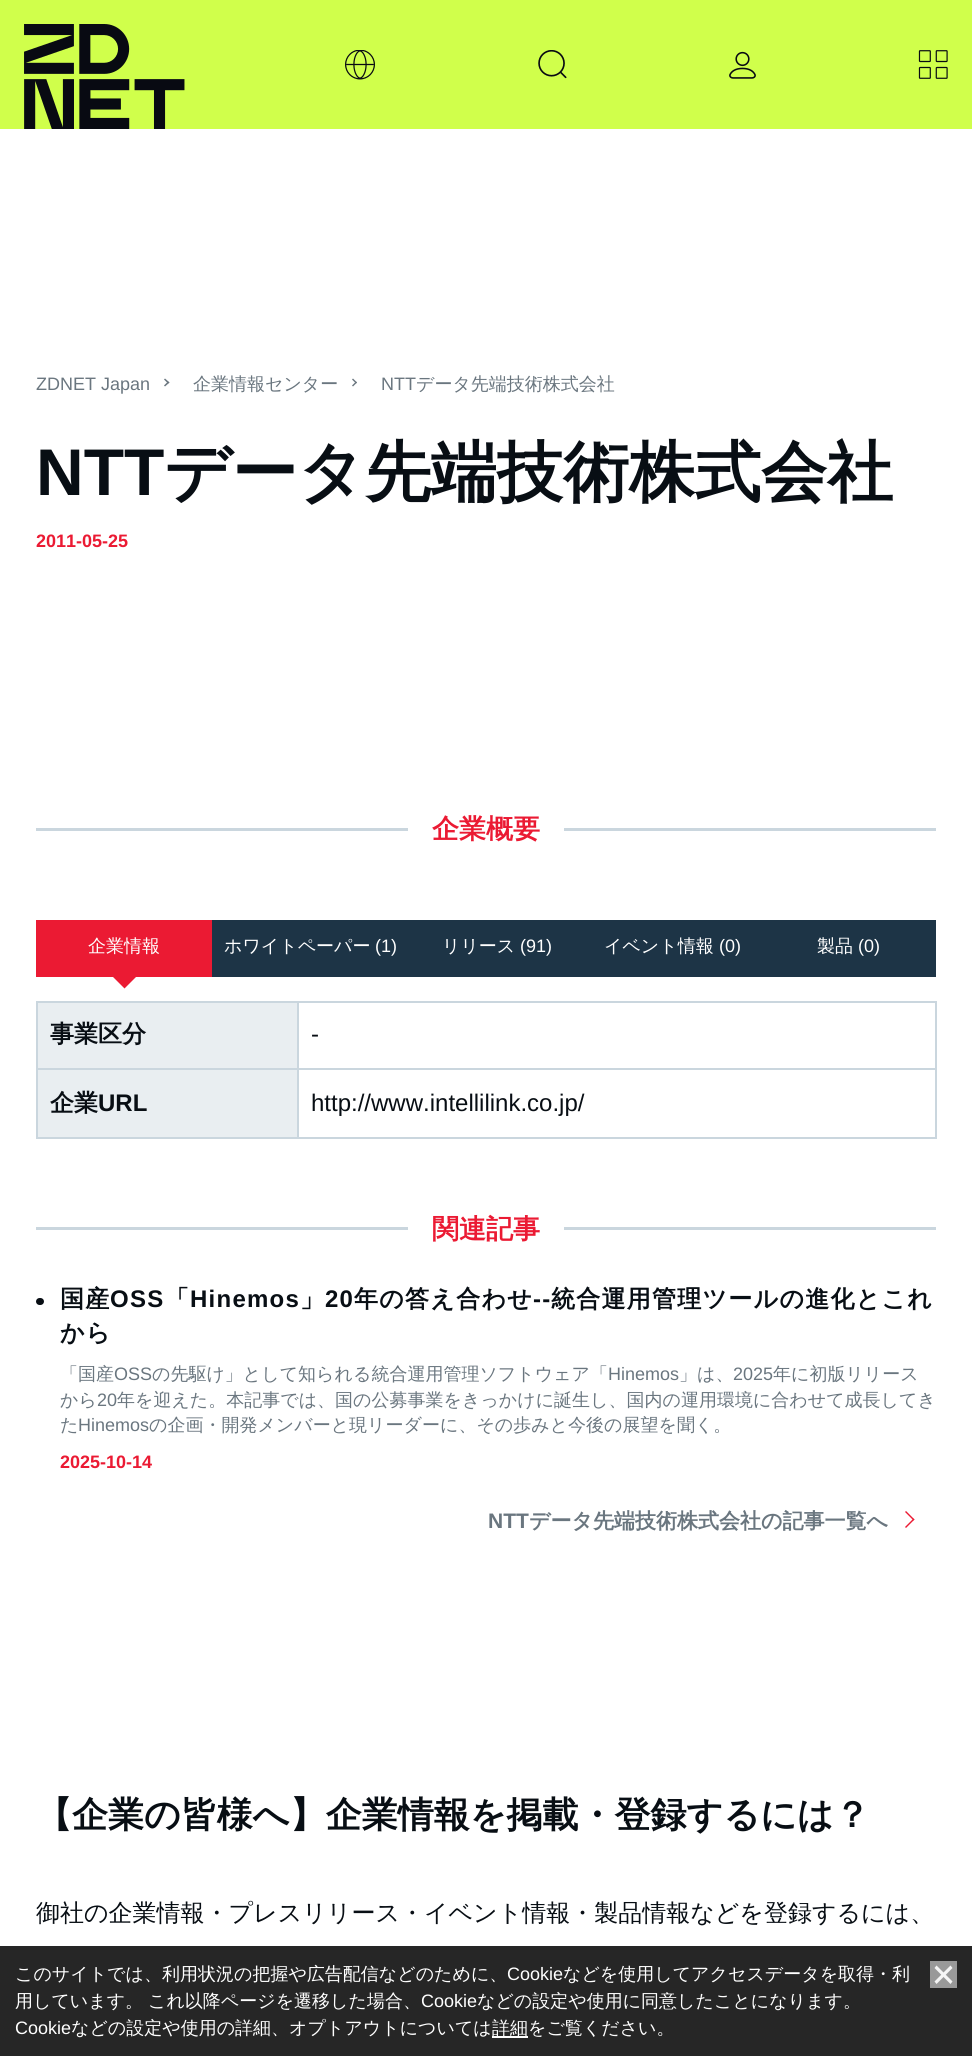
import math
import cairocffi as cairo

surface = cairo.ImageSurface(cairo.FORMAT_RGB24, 972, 2056)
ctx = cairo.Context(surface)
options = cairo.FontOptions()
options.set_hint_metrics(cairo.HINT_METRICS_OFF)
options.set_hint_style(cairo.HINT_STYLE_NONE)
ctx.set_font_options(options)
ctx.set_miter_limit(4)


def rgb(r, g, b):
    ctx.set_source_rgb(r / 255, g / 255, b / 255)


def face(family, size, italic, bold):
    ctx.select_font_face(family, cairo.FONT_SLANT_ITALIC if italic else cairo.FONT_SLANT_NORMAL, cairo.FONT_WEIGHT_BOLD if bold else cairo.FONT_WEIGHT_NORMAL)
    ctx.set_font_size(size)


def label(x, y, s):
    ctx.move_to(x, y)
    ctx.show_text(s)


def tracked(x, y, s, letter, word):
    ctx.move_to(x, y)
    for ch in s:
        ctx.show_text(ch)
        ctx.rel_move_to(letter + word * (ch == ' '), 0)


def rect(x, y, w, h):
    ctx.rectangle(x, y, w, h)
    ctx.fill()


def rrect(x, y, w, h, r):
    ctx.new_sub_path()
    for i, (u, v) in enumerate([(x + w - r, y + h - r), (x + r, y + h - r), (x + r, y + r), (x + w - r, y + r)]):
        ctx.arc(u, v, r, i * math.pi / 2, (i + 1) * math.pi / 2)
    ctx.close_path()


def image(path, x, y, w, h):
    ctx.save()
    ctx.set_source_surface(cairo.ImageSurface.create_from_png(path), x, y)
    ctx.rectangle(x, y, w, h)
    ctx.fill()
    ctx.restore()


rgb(255, 255, 255)
ctx.paint()
rgb(208, 255, 75)
rect(0, 0, 972, 129)
image('image0.png', 24, 24, 161, 105)
image('image1.png', 345, 50, 30, 30)
image('image2.png', 538, 50, 29, 29)
image('image3.png', 729, 51, 27, 28)
image('image4.png', 918, 50, 30, 29)
face('Liberation Sans', 18, 0, 0)
rgb(106, 118, 127)
label(36, 390, 'ZDNET Japan')
ctx.new_path()
ctx.move_to(165, 378.5)
ctx.line_to(169.5, 382.5)
ctx.line_to(168, 383.5)
ctx.line_to(164, 379.5)
ctx.close_path()
ctx.fill()
ctx.new_path()
ctx.move_to(168, 381.5)
ctx.line_to(169.5, 382.5)
ctx.line_to(165, 386.5)
ctx.line_to(164, 385.5)
ctx.close_path()
ctx.fill()
face('WenQuanYi Zen Hei Medium', 18, 0, 0)
label(193, 390, '企業情報センター')
ctx.new_path()
ctx.move_to(353, 378.5)
ctx.line_to(357, 382.5)
ctx.line_to(356, 383.5)
ctx.line_to(352, 379.5)
ctx.close_path()
ctx.fill()
ctx.new_path()
ctx.move_to(356, 381.5)
ctx.line_to(357, 382.5)
ctx.line_to(353, 386.5)
ctx.line_to(352, 385.5)
ctx.close_path()
ctx.fill()
face('Liberation Sans', 18, 0, 0)
label(381, 390, 'NTT')
face('WenQuanYi Zen Hei Medium', 18, 0, 0)
label(416, 390, 'データ先端技術株式会社')
face('Liberation Sans', 66, 0, 1)
rgb(8, 14, 20)
label(36, 495, 'NTT')
face('WenQuanYi Zen Hei', 66, 0, 1)
label(164, 495, 'データ先端技術株式会社')
face('Liberation Sans', 18, 0, 1)
rgb(235, 26, 51)
label(36, 547, '2011-05-25')
rgb(202, 214, 222)
rect(36, 828, 900, 3)
rgb(255, 255, 255)
rect(408, 828, 156, 3)
face('WenQuanYi Zen Hei', 27, 0, 1)
rgb(235, 26, 51)
label(432, 838, '企業概要')
rgb(29, 52, 70)
rect(212, 920, 724, 57)
rgb(235, 26, 51)
rect(36, 920, 176, 57)
face('WenQuanYi Zen Hei Medium', 18, 0, 0)
rgb(255, 255, 255)
label(88, 952, '企業情報')
rgb(235, 26, 51)
ctx.new_path()
ctx.move_to(112.5, 976.5)
ctx.line_to(136.5, 976.5)
ctx.line_to(124.5, 988.5)
ctx.close_path()
ctx.fill()
rgb(255, 255, 255)
label(224, 952, 'ホワイトペーパー')
face('Liberation Sans', 18, 0, 0)
label(375, 952, '(1)')
face('WenQuanYi Zen Hei Medium', 18, 0, 0)
label(442, 952, 'リリース')
face('Liberation Sans', 18, 0, 0)
label(520, 952, '(91)')
face('WenQuanYi Zen Hei Medium', 18, 0, 0)
label(604, 952, 'イベント情報')
face('Liberation Sans', 18, 0, 0)
label(719, 952, '(0)')
face('WenQuanYi Zen Hei Medium', 18, 0, 0)
label(817, 952, '製品')
face('Liberation Sans', 18, 0, 0)
label(858, 952, '(0)')
rgb(233, 238, 241)
rect(38, 1003, 259, 65)
rgb(202, 214, 222)
rect(297, 1001, 639, 2)
rect(297, 1068, 639, 2)
rect(935, 1068, 2, 71)
rect(297, 1137, 639, 2)
rect(297, 1068, 2, 71)
rect(36, 1068, 263, 2)
rect(297, 1001, 2, 69)
rect(36, 1001, 263, 2)
rect(36, 1137, 263, 2)
rect(36, 1068, 2, 71)
rect(36, 1001, 2, 69)
face('WenQuanYi Zen Hei', 24, 0, 1)
rgb(8, 14, 20)
label(50, 1042, '事業区分')
rgb(202, 214, 222)
rect(935, 1001, 2, 69)
face('Liberation Sans', 24, 0, 0)
rgb(8, 14, 20)
label(311, 1042, '-')
rgb(233, 238, 241)
rect(38, 1070, 259, 67)
face('WenQuanYi Zen Hei', 24, 0, 1)
rgb(8, 14, 20)
label(50, 1111, '企業')
face('Liberation Sans', 24, 0, 1)
label(98, 1111, 'URL')
face('Liberation Sans', 24, 0, 0)
label(311, 1111, 'http://www.intellilink.co.jp/')
rgb(202, 214, 222)
rect(36, 1227, 900, 3)
rgb(255, 255, 255)
rect(408, 1227, 156, 3)
face('WenQuanYi Zen Hei', 27, 0, 1)
rgb(235, 26, 51)
label(432, 1238, '関連記事')
rgb(8, 14, 20)
rrect(36, 1298, 8, 7, 3.5)
ctx.fill()
face('WenQuanYi Zen Hei', 24, 0, 1)
tracked(60, 1307, '国産', 1.25, 0)
face('Liberation Sans', 24, 0, 1)
tracked(110, 1307, 'OSS', 1.25, 0)
face('WenQuanYi Zen Hei', 24, 0, 1)
tracked(165, 1307, '「', 1.25, 0)
face('Liberation Sans', 24, 0, 1)
tracked(190, 1307, 'Hinemos', 1.25, 0)
face('WenQuanYi Zen Hei', 24, 0, 1)
tracked(300, 1307, '」', 1.25, 0)
face('Liberation Sans', 24, 0, 1)
tracked(325, 1307, '20', 1.25, 0)
face('WenQuanYi Zen Hei', 24, 0, 1)
tracked(354, 1307, '年の答え合わせ', 1.25, 0)
face('Liberation Sans', 24, 0, 1)
tracked(533, 1307, '--', 1.25, 0)
face('WenQuanYi Zen Hei', 24, 0, 1)
tracked(551, 1307, '統合運用管理ツールの進化とこれ', 1.25, 0)
tracked(60, 1341, 'から', 1.25, 0)
face('WenQuanYi Zen Hei Medium', 18, 0, 0)
rgb(106, 118, 127)
label(60, 1380, '「国産')
face('Liberation Sans', 18, 0, 0)
label(114, 1380, 'OSS')
face('WenQuanYi Zen Hei Medium', 18, 0, 0)
label(152, 1380, 'の先駆け」として知られる統合運用管理ソフトウェア「')
face('Liberation Sans', 18, 0, 0)
label(608, 1380, 'Hinemos')
face('WenQuanYi Zen Hei Medium', 18, 0, 0)
label(679, 1380, '」は、')
face('Liberation Sans', 18, 0, 0)
label(733, 1380, '2025')
face('WenQuanYi Zen Hei Medium', 18, 0, 0)
label(773, 1380, '年に初版リリース')
label(60, 1406, 'から')
face('Liberation Sans', 18, 0, 0)
label(97, 1406, '20')
face('WenQuanYi Zen Hei Medium', 18, 0, 0)
label(117, 1406, '年を迎えた。本記事では、国の公募事業をきっかけに誕生し、国内の運用環境に合わせて成長してき')
label(60, 1431, 'た')
face('Liberation Sans', 18, 0, 0)
label(78, 1431, 'Hinemos')
face('WenQuanYi Zen Hei Medium', 18, 0, 0)
label(149, 1431, 'の企画・開発メンバーと現リーダーに、その歩みと今後の展望を聞く。')
face('Liberation Sans', 18, 0, 1)
rgb(235, 26, 51)
label(60, 1468, '2025-10-14')
face('Liberation Sans', 21, 0, 1)
rgb(106, 118, 127)
label(488, 1528, 'NTT')
face('WenQuanYi Zen Hei', 21, 0, 1)
label(529, 1528, 'データ先端技術株式会社の記事一覧へ')
rgb(235, 26, 51)
ctx.new_path()
ctx.move_to(906, 1511)
ctx.line_to(914.5, 1519.5)
ctx.line_to(913.5, 1520.5)
ctx.line_to(905, 1512)
ctx.close_path()
ctx.fill()
ctx.new_path()
ctx.move_to(913.5, 1518.5)
ctx.line_to(914.5, 1519.5)
ctx.line_to(906, 1528)
ctx.line_to(905, 1527)
ctx.close_path()
ctx.fill()
face('WenQuanYi Zen Hei', 36, 0, 1)
rgb(8, 14, 20)
label(36, 1827, '【企業の皆様へ】企業情報を掲載・登録するには？')
face('WenQuanYi Zen Hei Medium', 24, 0, 0)
label(36, 1921, '御社の企業情報・プレスリリース・イベント情報・製品情報などを登録するには、')
ctx.set_source_rgba(0, 0, 0, 0.85)
rect(0, 1946, 972, 110)
face('WenQuanYi Zen Hei Medium', 18, 0, 0)
rgb(255, 255, 255)
label(15, 1980, 'このサイトでは、利用状況の把握や広告配信などのために、')
face('Liberation Sans', 18, 0, 0)
label(507, 1980, 'Cookie')
face('WenQuanYi Zen Hei Medium', 18, 0, 0)
label(563, 1980, 'などを使用してアクセスデータを取得・利')
rgb(153, 153, 153)
rect(930, 1961, 27, 27)
rgb(245, 245, 245)
ctx.new_path()
ctx.move_to(934.5, 1968)
ctx.line_to(936.5, 1965.5)
ctx.line_to(952.5, 1981.5)
ctx.line_to(950.5, 1984)
ctx.close_path()
ctx.fill()
ctx.new_path()
ctx.move_to(950.5, 1965.5)
ctx.line_to(952.5, 1968)
ctx.line_to(936.5, 1984)
ctx.line_to(934.5, 1981.5)
ctx.close_path()
ctx.fill()
rgb(255, 255, 255)
label(15, 2007, '用しています。')
label(148, 2007, 'これ以降ページを遷移した場合、')
face('Liberation Sans', 18, 0, 0)
label(421, 2007, 'Cookie')
face('WenQuanYi Zen Hei Medium', 18, 0, 0)
label(477, 2007, 'などの設定や使用に同意したことになります。')
face('Liberation Sans', 18, 0, 0)
label(15, 2034, 'Cookie')
face('WenQuanYi Zen Hei Medium', 18, 0, 0)
label(71, 2034, 'などの設定や使用の詳細、オプトアウトについては')
rect(492, 2036, 36, 2)
label(492, 2034, '詳細をご覧ください。')
surface.write_to_png('render.png')
